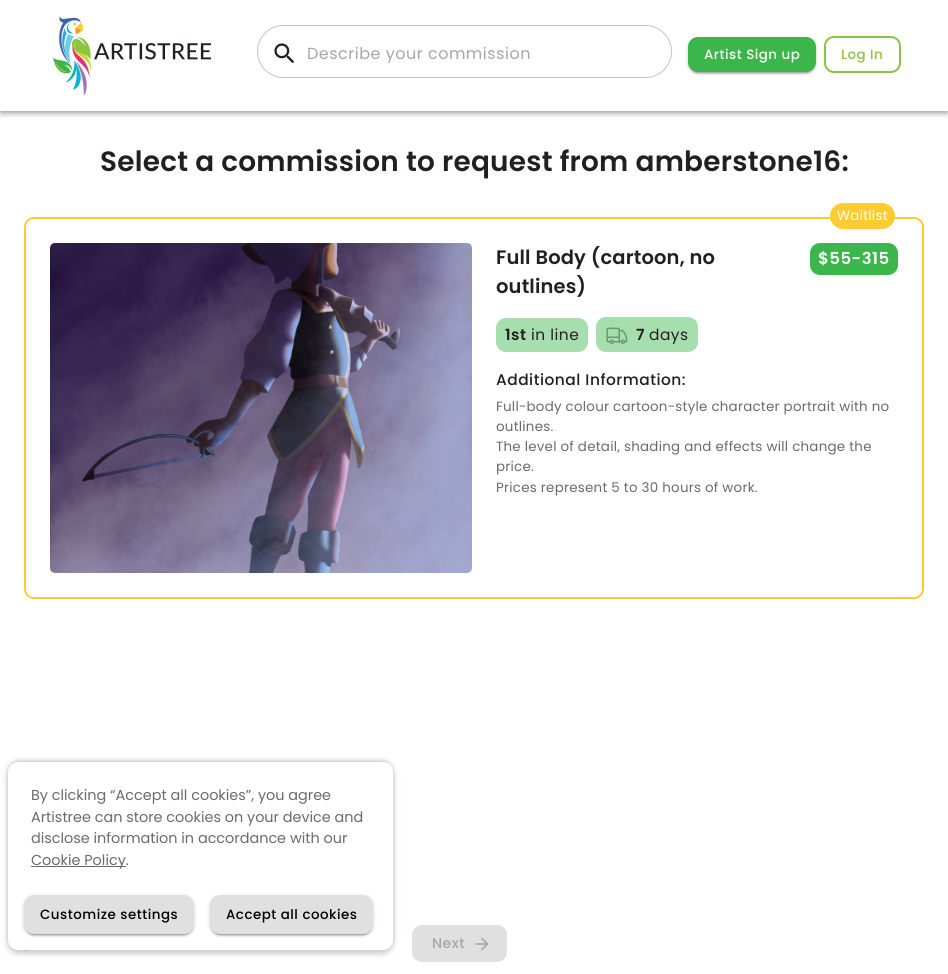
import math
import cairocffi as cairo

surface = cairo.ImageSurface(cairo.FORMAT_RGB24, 948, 974)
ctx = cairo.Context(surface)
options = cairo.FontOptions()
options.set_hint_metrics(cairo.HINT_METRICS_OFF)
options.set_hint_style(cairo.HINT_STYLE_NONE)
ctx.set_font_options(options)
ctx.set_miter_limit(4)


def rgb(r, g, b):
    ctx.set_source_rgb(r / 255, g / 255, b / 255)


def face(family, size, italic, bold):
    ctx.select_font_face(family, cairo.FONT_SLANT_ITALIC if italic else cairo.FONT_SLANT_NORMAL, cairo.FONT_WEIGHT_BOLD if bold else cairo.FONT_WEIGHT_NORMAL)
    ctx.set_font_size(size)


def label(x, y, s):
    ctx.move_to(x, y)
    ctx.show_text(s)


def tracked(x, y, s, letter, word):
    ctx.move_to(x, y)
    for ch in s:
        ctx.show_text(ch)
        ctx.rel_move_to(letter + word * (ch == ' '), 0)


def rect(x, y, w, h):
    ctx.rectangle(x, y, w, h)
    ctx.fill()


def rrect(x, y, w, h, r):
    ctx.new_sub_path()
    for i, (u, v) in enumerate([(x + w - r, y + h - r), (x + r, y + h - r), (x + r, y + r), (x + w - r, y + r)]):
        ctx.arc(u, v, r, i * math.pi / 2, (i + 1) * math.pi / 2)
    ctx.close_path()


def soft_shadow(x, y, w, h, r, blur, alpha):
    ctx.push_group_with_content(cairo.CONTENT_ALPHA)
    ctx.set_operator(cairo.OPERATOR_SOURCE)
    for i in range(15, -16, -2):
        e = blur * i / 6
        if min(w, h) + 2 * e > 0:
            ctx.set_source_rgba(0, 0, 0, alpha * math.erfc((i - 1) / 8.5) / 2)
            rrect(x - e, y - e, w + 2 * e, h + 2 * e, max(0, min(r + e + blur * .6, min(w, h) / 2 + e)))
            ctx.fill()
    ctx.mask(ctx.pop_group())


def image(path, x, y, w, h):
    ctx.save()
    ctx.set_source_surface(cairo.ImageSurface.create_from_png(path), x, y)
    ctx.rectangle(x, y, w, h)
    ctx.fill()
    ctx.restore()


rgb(255, 255, 255)
ctx.paint()
ctx.save()
ctx.rectangle(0, 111, 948, 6)
ctx.clip()
rgb(0, 0, 0)
soft_shadow(0, 1, 948, 111, 0, 5, 0.12)
ctx.restore()
ctx.save()
ctx.rectangle(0, 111, 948, 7)
ctx.clip()
rgb(0, 0, 0)
soft_shadow(0, 4, 948, 111, 0, 2.5, 0.14)
ctx.restore()
ctx.save()
ctx.rectangle(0, 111, 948, 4)
ctx.clip()
rgb(0, 0, 0)
soft_shadow(1, 3, 946, 109, 0, 2, 0.2)
ctx.restore()
image('image0.png', 53, 16, 158, 80)
image('image1.png', 274, 43, 20, 20)
rrect(257.5, 25.5, 414, 52, 26)
rgb(196, 196, 196)
ctx.set_line_width(1)
ctx.stroke()
face('Poppins', 16, 0, 0)
rgb(166, 166, 166)
tracked(307, 59, 'Describe your commission', 0.5, 0)
rgb(0, 0, 0)
soft_shadow(688, 38, 128, 35, 10, 2.5, 0.12)
soft_shadow(688, 39, 128, 35, 10, 1, 0.14)
soft_shadow(690, 42, 124, 31, 8, 0.5, 0.2)
rgb(58, 182, 74)
rrect(688, 37, 128, 35, 10)
ctx.fill()
face('Poppins Medium', 13.4, 0, 0)
rgb(255, 255, 255)
tracked(704, 59, 'Artist Sign up', 0.5, 0)
rrect(825, 37, 75, 35, 9)
rgb(139, 196, 64)
ctx.set_line_width(2)
ctx.stroke()
tracked(841, 59, 'Log In', 0.5, 0)
face('Poppins SemiBold', 27.9, 0, 0)
rgb(35, 31, 32)
tracked(100, 171, 'Select a commission to request from amberstone16:', 0.25, 0)
rrect(25, 218, 898, 380, 9)
rgb(255, 203, 50)
ctx.stroke()
rrect(830, 203, 65, 26, 13)
ctx.fill()
face('Poppins', 13.4, 0, 0)
rgb(255, 255, 255)
tracked(837, 220, 'Waitlist', 0.25, 0)
image('image2.png', 50, 243, 422, 330)
face('Poppins SemiBold', 19.5, 0, 0)
rgb(35, 31, 32)
tracked(496, 264, 'Full Body (cartoon, no', 0.15, 0)
tracked(496, 293, 'outlines)', 0.15, 0)
rgb(58, 182, 74)
rrect(810, 243, 88, 32, 10)
ctx.fill()
face('Poppins SemiBold', 16.5, 0, 0)
rgb(255, 255, 255)
tracked(818, 264, '$55-315', 0.5, 0)
rgb(166, 222, 174)
rrect(496, 318, 92, 34, 10)
ctx.fill()
face('Poppins SemiBold', 15.4, 0, 0)
rgb(35, 31, 32)
tracked(505, 340, '1st', 0.5, 0)
face('Poppins', 15.4, 0, 0)
tracked(531, 340, 'in line', 0.5, 0)
rgb(166, 222, 174)
rrect(596, 317, 102, 35, 10)
ctx.fill()
image('image3.png', 606, 327, 22, 17)
face('Poppins SemiBold', 15.4, 0, 0)
rgb(35, 31, 32)
tracked(636, 340, '7', 0.5, 0)
face('Poppins', 15.4, 0, 0)
tracked(649, 340, 'days', 0.5, 0)
face('Poppins Medium', 15.4, 0, 0)
tracked(496, 385, 'Additional Information:', 0.5, 0)
face('Poppins', 13.4, 0, 0)
rgb(106, 106, 106)
tracked(496, 411, 'Full-body colour cartoon-style character portrait with no', 0.25, 0)
tracked(496, 431, 'outlines.', 0.25, 0)
tracked(496, 451, 'The level of detail, shading and effects will change the', 0.25, 0)
tracked(496, 471, 'price.', 0.25, 0)
tracked(496, 492, 'Prices represent 5 to 30 hours of work.', 0.25, 0)
rgb(224, 224, 224)
rrect(412, 925, 95, 37, 10)
ctx.fill()
face('Poppins Medium', 14, 0, 0)
rgb(166, 166, 166)
tracked(432, 948, 'Next', 0.5, 0)
image('image4.png', 475, 937, 14, 14)
image('image5.png', 24, 950, 4, 1)
rgb(0, 0, 0)
soft_shadow(8, 763, 385, 188, 10, 5, 0.12)
soft_shadow(8, 766, 385, 188, 10, 2.5, 0.14)
soft_shadow(9, 761, 383, 186, 9, 2, 0.2)
rgb(255, 255, 255)
rrect(8, 762, 385, 188, 10)
ctx.fill()
face('Poppins', 14.4, 0, 0)
rgb(106, 106, 106)
label(31, 800, 'By clicking “Accept all cookies”, you agree')
label(31, 822, 'Artistree can store cookies on your device and')
label(31, 843, 'disclose information in accordance with our')
rect(31, 866, 95, 1)
label(31, 865, 'Cookie Policy.')
rgb(0, 0, 0)
soft_shadow(24, 896, 170, 39, 10, 2.5, 0.12)
soft_shadow(24, 897, 170, 39, 10, 1, 0.14)
soft_shadow(26, 900, 166, 35, 8, 0.5, 0.2)
rgb(224, 224, 224)
rrect(24, 895, 170, 39, 10)
ctx.fill()
face('Poppins Medium', 13.4, 0, 0)
rgb(0, 0, 0)
tracked(40, 919, 'Customize settings', 0.5, 0)
rgb(0, 0, 0)
soft_shadow(210, 896, 163, 39, 10, 2.5, 0.12)
soft_shadow(210, 897, 163, 39, 10, 1, 0.14)
soft_shadow(212, 900, 159, 35, 8, 0.5, 0.2)
rgb(224, 224, 224)
rrect(210, 895, 163, 39, 10)
ctx.fill()
rgb(0, 0, 0)
tracked(226, 919, 'Accept all cookies', 0.5, 0)
surface.write_to_png('render.png')
